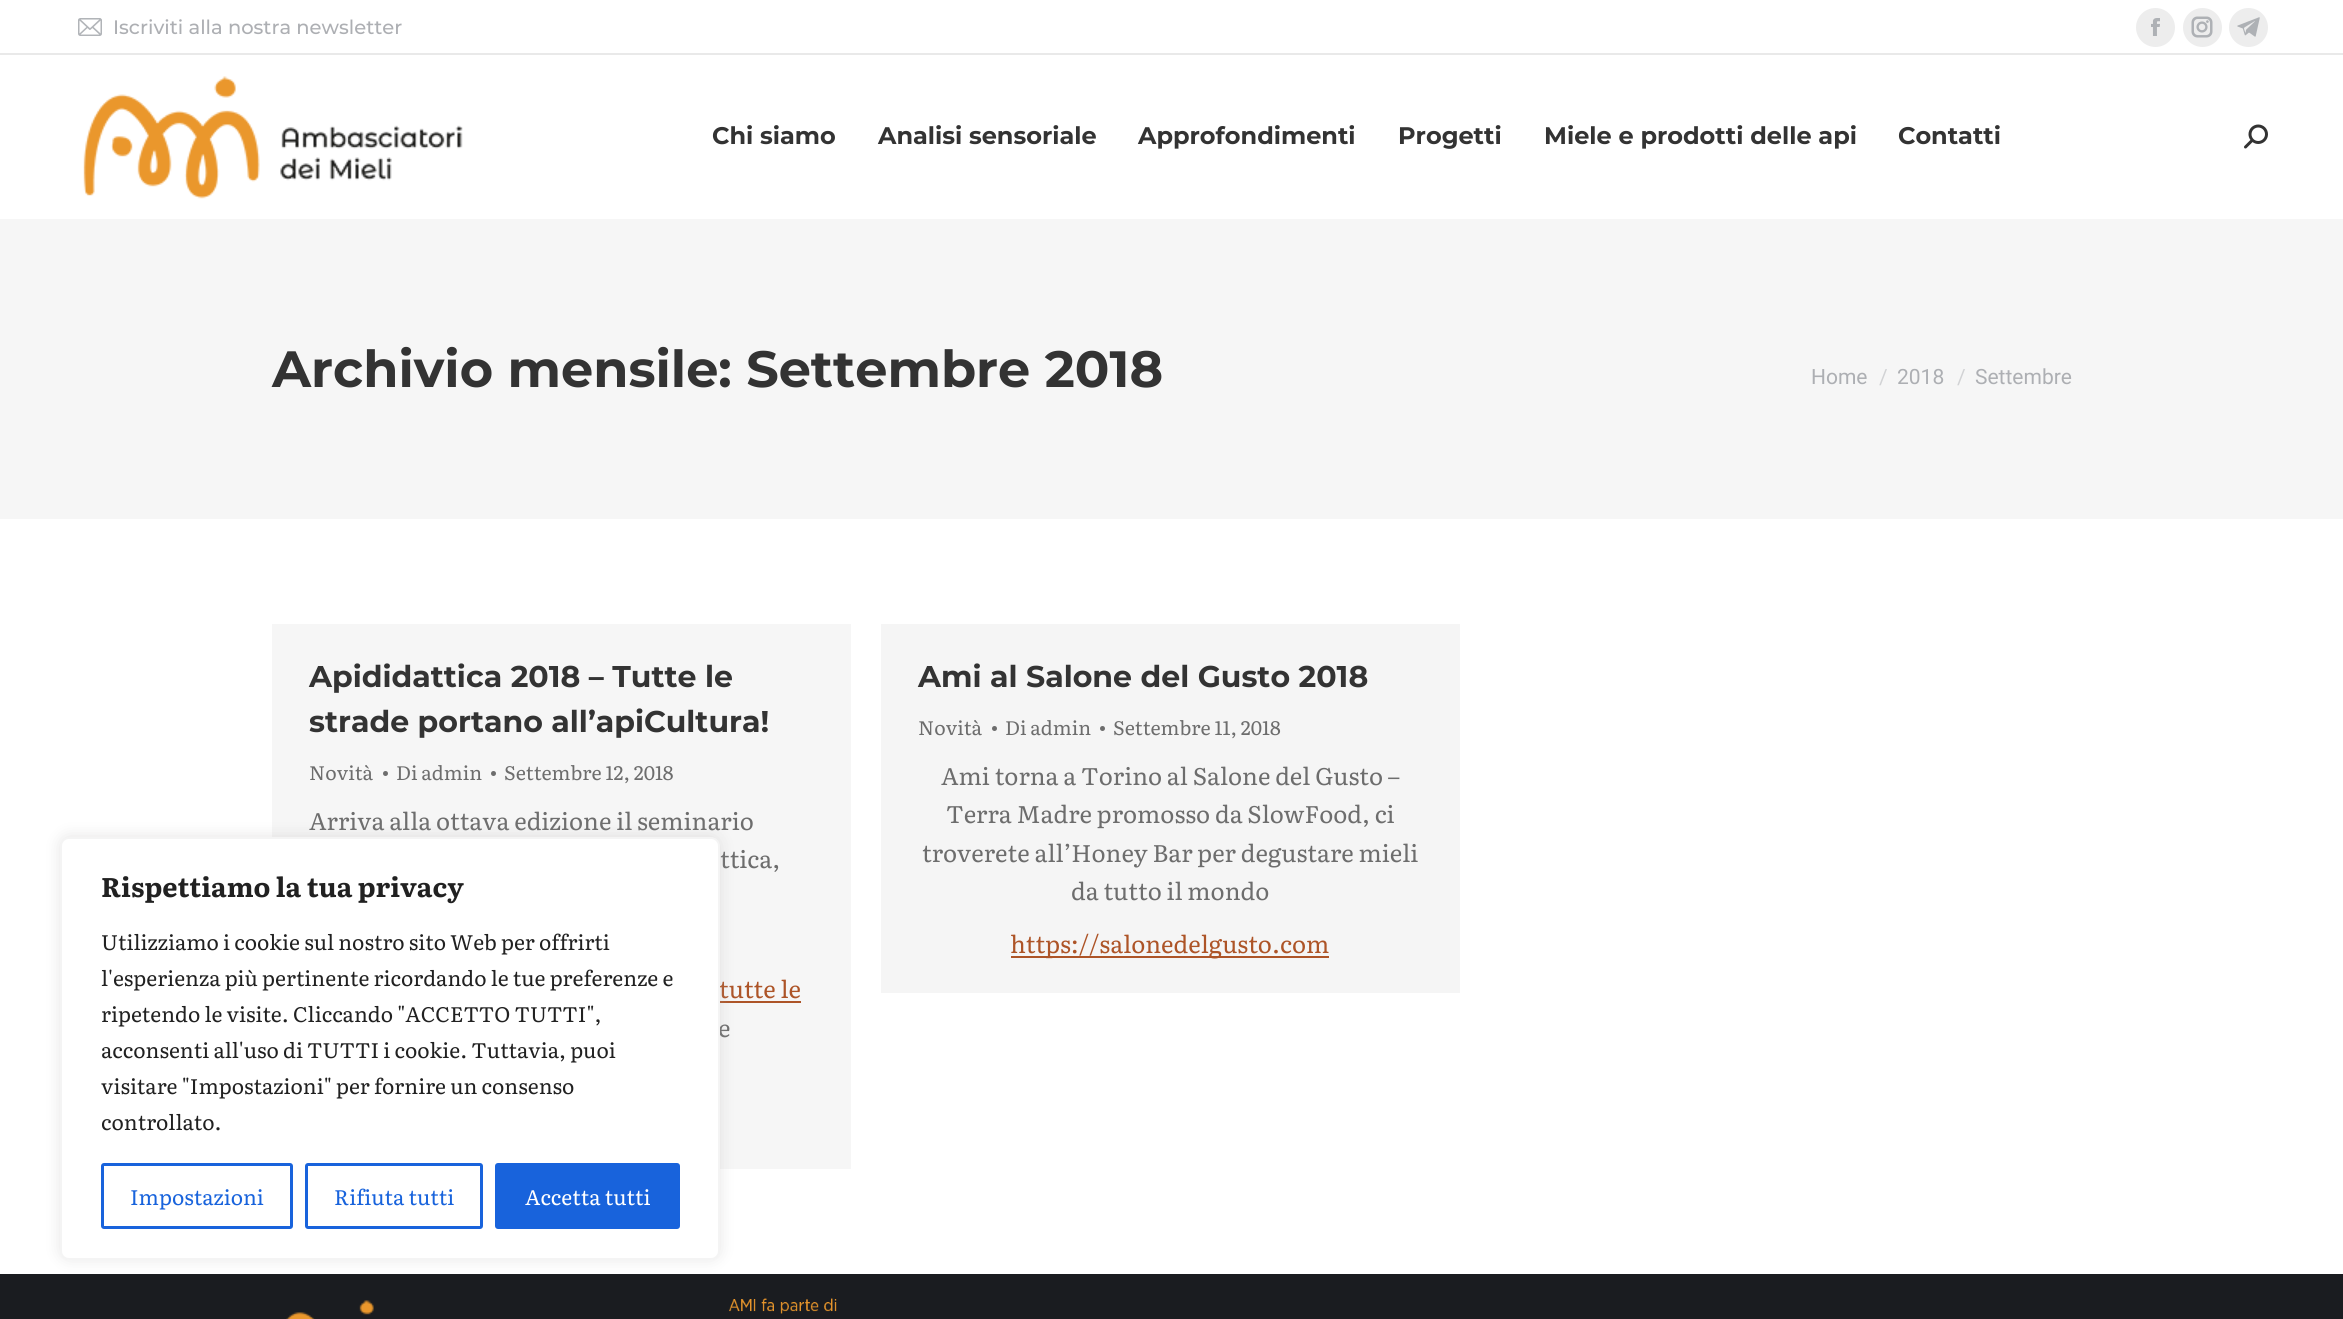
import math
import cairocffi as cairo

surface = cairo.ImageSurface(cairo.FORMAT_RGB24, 2343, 1319)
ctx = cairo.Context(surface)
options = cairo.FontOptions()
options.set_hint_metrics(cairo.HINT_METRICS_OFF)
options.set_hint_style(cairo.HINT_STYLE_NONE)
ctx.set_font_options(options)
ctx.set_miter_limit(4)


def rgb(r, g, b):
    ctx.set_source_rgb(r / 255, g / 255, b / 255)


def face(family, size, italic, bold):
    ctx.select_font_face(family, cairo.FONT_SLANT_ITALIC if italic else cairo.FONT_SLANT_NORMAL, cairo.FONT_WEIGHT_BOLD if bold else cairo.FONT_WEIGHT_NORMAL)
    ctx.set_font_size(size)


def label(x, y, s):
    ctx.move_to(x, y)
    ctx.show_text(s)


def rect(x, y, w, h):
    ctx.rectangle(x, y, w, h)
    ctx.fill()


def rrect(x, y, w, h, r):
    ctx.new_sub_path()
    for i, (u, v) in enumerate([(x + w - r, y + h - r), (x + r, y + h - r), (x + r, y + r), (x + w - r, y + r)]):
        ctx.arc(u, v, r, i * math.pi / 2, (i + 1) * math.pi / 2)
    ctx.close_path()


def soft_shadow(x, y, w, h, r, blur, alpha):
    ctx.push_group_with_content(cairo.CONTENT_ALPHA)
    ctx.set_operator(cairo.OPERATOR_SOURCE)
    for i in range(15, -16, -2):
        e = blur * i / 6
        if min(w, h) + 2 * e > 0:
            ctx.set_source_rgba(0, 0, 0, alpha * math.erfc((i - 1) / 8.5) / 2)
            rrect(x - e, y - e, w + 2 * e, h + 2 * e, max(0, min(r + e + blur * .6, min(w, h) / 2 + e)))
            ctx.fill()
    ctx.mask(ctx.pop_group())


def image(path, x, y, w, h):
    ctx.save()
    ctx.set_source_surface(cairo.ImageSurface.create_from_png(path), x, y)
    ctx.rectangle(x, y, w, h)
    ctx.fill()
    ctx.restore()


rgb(255, 255, 255)
ctx.paint()
image('image0.png', 78, 18, 24, 18)
face('Montserrat Medium', 19.5, 0, 0)
rgb(173, 175, 179)
label(113, 34, 'Iscriviti alla nostra newsletter')
rgb(237, 237, 237)
ctx.new_path()
ctx.arc(2155.5, 27.5, 19.5, 0, 2 * math.pi)
ctx.fill()
image('image1.png', 2151, 18, 9, 18)
ctx.arc(2202.5, 27.5, 19.5, 0, 2 * math.pi)
ctx.fill()
image('image2.png', 2191, 16, 22, 22)
ctx.arc(2248.5, 27.5, 19.5, 0, 2 * math.pi)
ctx.fill()
image('image3.png', 2237, 17, 23, 20)
rgb(233, 233, 233)
rect(0, 53, 2343, 2)
image('image4.png', 83, 76, 380, 123)
face('Montserrat', 24, 0, 1)
rgb(51, 51, 51)
label(712, 144, 'Chi siamo')
label(878, 144, 'Analisi sensoriale')
label(1138, 144, 'Approfondimenti')
label(1398, 144, 'Progetti')
label(1544, 144, 'Miele e prodotti delle api')
label(1898, 144, 'Contatti')
image('image5.png', 2244, 124, 24, 25)
rgb(246, 246, 246)
rect(0, 219, 2343, 300)
face('Montserrat', 51, 0, 1)
rgb(51, 51, 51)
label(272, 387, 'Archivio mensile: Settembre 2018')
face('Roboto', 21, 0, 0)
rgb(173, 175, 179)
label(1811, 384, 'Home')
rgb(210, 211, 213)
label(1879, 384, '/')
rgb(173, 175, 179)
label(1897, 384, '2018')
rgb(210, 211, 213)
label(1957, 384, '/')
rgb(173, 175, 179)
label(1975, 384, 'Settembre')
rgb(246, 246, 246)
rect(272, 624, 579, 545)
face('Montserrat', 30, 0, 1)
rgb(51, 51, 51)
label(309, 687, 'Apididattica 2018 – Tutte le')
label(309, 732, 'strade portano all’apiCultura!')
face('Literata', 19.5, 0, 0)
rgb(109, 109, 109)
label(309, 780, 'Novità')
ctx.new_path()
ctx.arc(385.5, 773.5, 2.5, 0, 2 * math.pi)
ctx.fill()
label(396, 780, 'Di admin')
ctx.new_path()
ctx.arc(493.5, 773.5, 2.5, 0, 2 * math.pi)
ctx.fill()
label(504, 780, 'Settembre 12, 2018')
face('Literata', 24, 0, 0)
label(309, 830, 'Arriva alla ottava edizione il seminario')
label(720, 868, 'ttica,')
rgb(173, 84, 39)
label(719, 998, 'tutte le')
rect(720, 1001, 81, 2)
rgb(109, 109, 109)
label(718, 1037, 'e')
rgb(245, 245, 245)
rect(881, 624, 579, 369)
face('Montserrat', 30, 0, 1)
rgb(51, 51, 51)
label(918, 687, 'Ami al Salone del Gusto 2018')
face('Literata', 19.5, 0, 0)
rgb(109, 109, 109)
label(918, 735, 'Novità')
ctx.new_path()
ctx.arc(994.5, 728.5, 2.5, 0, 2 * math.pi)
ctx.fill()
label(1005, 735, 'Di admin')
ctx.new_path()
ctx.arc(1102.5, 728.5, 2.5, 0, 2 * math.pi)
ctx.fill()
label(1113, 735, 'Settembre 11, 2018')
face('Literata', 24, 0, 0)
label(941, 785, 'Ami torna a Torino al Salone del Gusto –')
label(946, 823, 'Terra Madre promosso da SlowFood, ci')
label(922, 862, 'troverete all’Honey Bar per degustare mieli')
label(1071, 900, 'da tutto il mondo')
rgb(173, 84, 39)
rect(1011, 956, 318, 2)
label(1010, 953, 'https://salonedelgusto.com')
rgb(26, 28, 32)
rect(0, 1274, 2343, 45)
image('image6.png', 286, 1300, 88, 19)
image('image7.png', 729, 1298, 108, 16)
rgb(172, 171, 171)
soft_shadow(60, 836, 660, 423, 9, 7.5, 0.3)
rgb(255, 255, 255)
rrect(61, 838, 658, 421, 8)
ctx.fill_preserve()
rgb(244, 244, 244)
ctx.stroke()
face('Literata', 27, 0, 1)
rgb(33, 33, 33)
label(101, 897, 'Rispettiamo la tua privacy')
face('Literata', 21, 0, 0)
label(101, 950, 'Utilizziamo i cookie sul nostro sito Web per offrirti')
label(101, 986, 'l\'esperienza più pertinente ricordando le tue preferenze e')
label(101, 1022, 'ripetendo le visite. Cliccando "ACCETTO TUTTI",')
label(101, 1058, 'acconsenti all\'uso di TUTTI i cookie. Tuttavia, puoi')
label(101, 1094, 'visitare "Impostazioni" per fornire un consenso')
label(101, 1130, 'controllato.')
rrect(102.5, 1164.5, 189, 63, 1.5)
rgb(24, 99, 220)
ctx.set_line_width(3)
ctx.stroke()
label(130, 1205, 'Impostazioni')
rrect(306.5, 1164.5, 175, 63, 1.5)
ctx.stroke()
label(334, 1205, 'Rifiuta tutti')
rrect(496.5, 1164.5, 182, 63, 1.5)
ctx.fill_preserve()
ctx.stroke()
rgb(255, 255, 255)
label(525, 1205, 'Accetta tutti')
surface.write_to_png('render.png')
